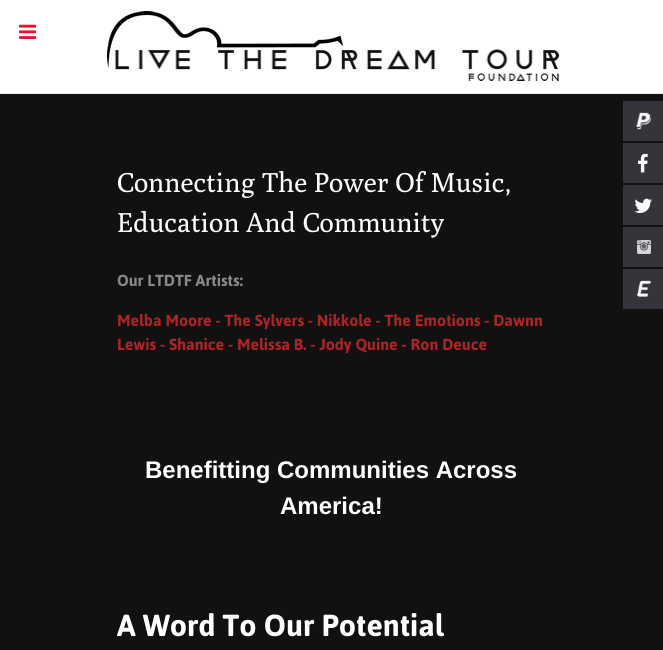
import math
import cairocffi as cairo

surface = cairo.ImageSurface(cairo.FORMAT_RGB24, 663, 650)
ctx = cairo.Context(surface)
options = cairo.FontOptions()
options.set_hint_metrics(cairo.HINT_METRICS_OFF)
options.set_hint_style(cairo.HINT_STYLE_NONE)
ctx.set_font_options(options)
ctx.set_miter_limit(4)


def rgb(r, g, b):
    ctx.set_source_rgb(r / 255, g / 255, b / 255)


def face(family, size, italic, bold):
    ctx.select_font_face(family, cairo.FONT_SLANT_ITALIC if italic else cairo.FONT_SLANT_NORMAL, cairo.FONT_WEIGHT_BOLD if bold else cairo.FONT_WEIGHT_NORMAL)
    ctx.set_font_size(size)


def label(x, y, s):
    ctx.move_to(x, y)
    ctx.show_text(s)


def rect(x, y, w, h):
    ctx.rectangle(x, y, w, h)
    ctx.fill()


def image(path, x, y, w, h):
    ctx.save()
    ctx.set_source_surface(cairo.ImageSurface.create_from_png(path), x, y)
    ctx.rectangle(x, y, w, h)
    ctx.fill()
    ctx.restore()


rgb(17, 17, 17)
ctx.paint()
rgb(255, 255, 255)
rect(0, 0, 663, 93)
rgb(235, 235, 235)
rect(0, 93, 663, 1)
image('image0.png', 107, 11, 453, 70)
image('image1.png', 19, 24, 18, 15)
face('Poly', 27.25, 0, 0)
rgb(255, 255, 255)
label(117, 192, 'Connecting The Power Of Music,')
label(117, 232, 'Education And Community')
face('Asap', 16, 0, 1)
rgb(136, 136, 136)
label(117, 286, 'Our LTDTF Artists:')
rgb(174, 36, 36)
label(117, 326, 'Melba Moore - The Sylvers - Nikkole - The Emotions - Dawnn')
label(117, 350, 'Lewis - Shanice - Melissa B. - Jody Quine - Ron Deuce')
face('Liberation Sans', 24, 0, 1)
rgb(255, 255, 255)
label(145, 478, 'Benefitting Communities Across')
label(280, 514, 'America!')
face('Asap', 30.4, 0, 1)
label(117, 636, 'A Word To Our Potential')
rgb(51, 53, 59)
rect(623, 101, 40, 40)
image('image2.png', 636, 112, 16, 18)
rect(623, 143, 40, 40)
image('image3.png', 638, 153, 10, 20)
rect(623, 185, 40, 40)
image('image4.png', 634, 198, 18, 15)
rect(623, 227, 40, 40)
image('image5.png', 637, 240, 14, 14)
rect(623, 269, 40, 40)
image('image6.png', 637, 280, 14, 17)
surface.write_to_png('render.png')
